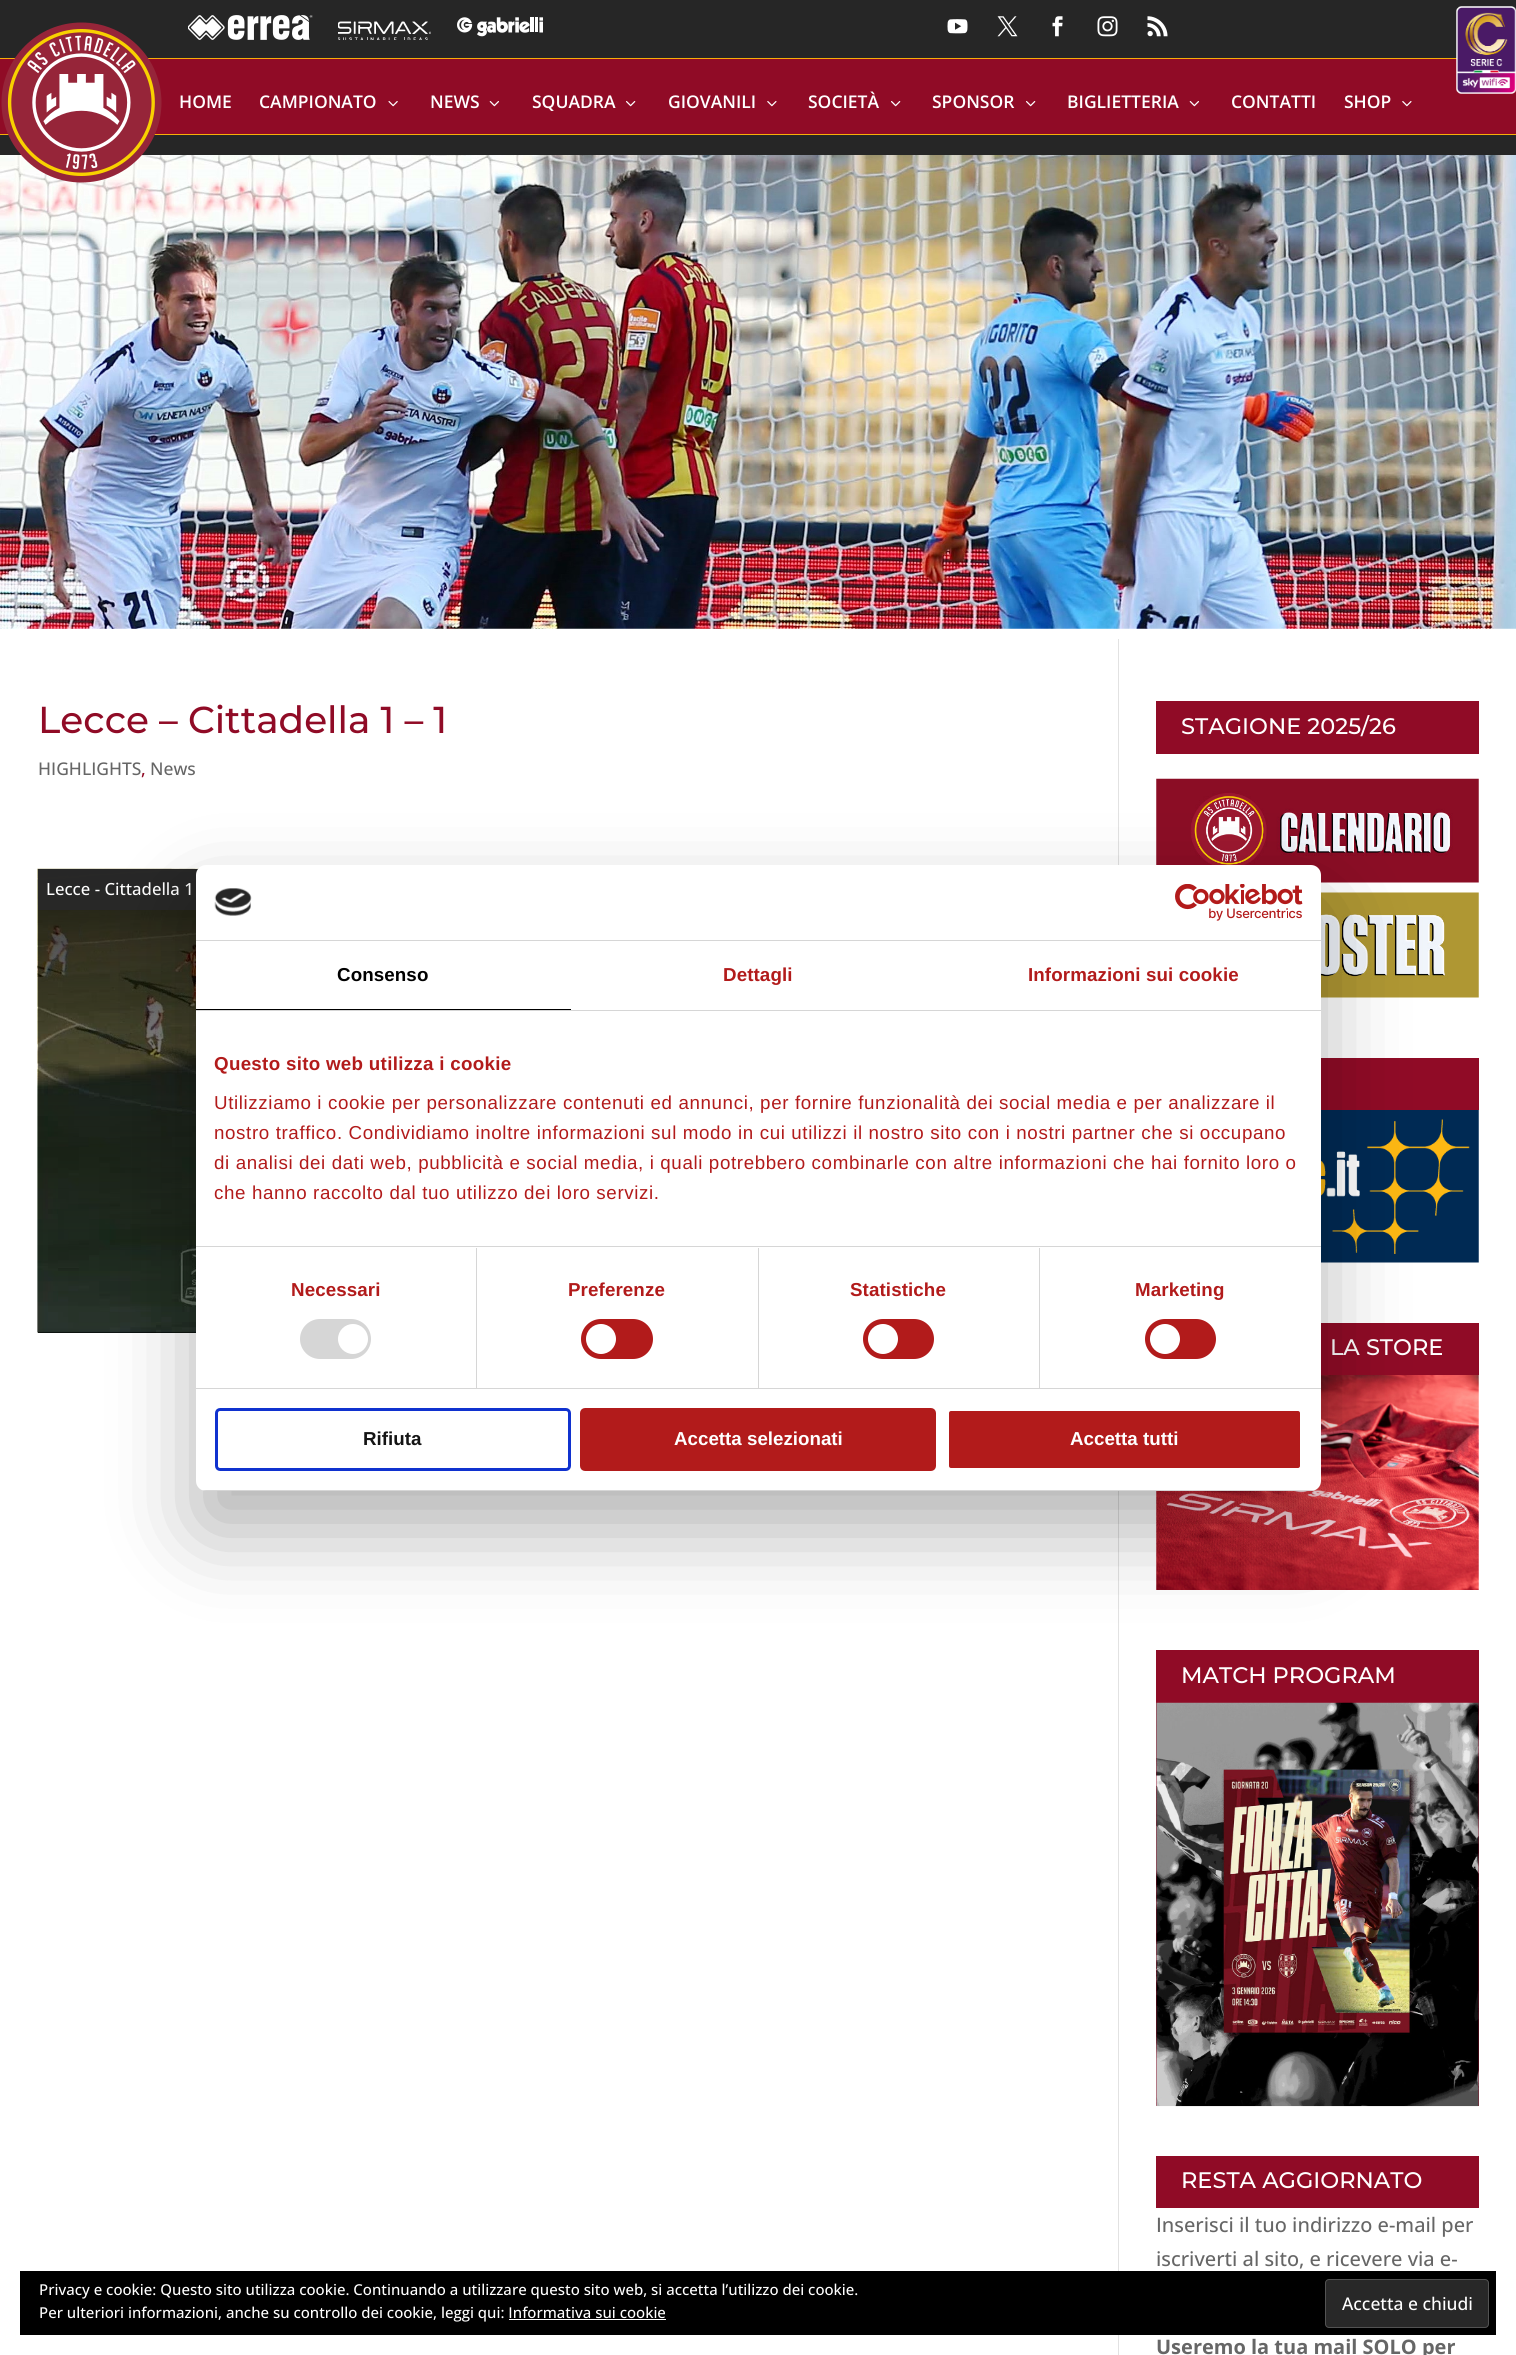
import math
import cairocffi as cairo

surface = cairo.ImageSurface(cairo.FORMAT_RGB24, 1516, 2355)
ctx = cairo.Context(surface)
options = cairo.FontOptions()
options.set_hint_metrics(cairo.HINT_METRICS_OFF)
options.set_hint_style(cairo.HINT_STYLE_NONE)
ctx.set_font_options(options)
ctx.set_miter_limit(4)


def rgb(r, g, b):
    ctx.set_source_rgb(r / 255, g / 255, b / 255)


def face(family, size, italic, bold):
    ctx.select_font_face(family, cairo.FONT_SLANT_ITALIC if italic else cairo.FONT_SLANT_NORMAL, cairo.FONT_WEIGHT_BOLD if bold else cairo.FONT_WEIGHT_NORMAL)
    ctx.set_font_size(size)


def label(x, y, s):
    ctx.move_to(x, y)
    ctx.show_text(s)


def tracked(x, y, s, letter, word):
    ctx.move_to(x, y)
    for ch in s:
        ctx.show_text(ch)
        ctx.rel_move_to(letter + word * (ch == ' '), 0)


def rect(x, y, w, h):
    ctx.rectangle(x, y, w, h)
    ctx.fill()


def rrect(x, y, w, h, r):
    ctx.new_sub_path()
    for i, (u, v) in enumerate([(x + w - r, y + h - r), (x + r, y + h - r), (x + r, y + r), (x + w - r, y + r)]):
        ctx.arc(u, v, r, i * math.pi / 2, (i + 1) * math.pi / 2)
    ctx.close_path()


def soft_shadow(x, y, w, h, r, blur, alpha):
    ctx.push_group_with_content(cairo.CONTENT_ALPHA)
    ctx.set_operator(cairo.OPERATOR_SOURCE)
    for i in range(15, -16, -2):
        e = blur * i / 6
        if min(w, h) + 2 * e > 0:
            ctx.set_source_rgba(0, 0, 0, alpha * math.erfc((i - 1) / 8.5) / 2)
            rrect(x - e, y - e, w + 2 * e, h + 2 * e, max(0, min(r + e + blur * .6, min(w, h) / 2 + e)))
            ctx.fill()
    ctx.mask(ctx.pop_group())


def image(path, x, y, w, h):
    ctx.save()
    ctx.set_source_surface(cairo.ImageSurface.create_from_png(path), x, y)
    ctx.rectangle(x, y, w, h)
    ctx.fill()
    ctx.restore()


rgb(255, 255, 255)
ctx.paint()
rgb(38, 38, 38)
rect(0, 0, 1516, 155)
image('image0.png', 188, 15, 125, 25)
image('image1.png', 338, 21, 93, 19)
image('image2.png', 457, 17, 86, 20)
image('image3.png', 947, 19, 21, 15)
image('image4.png', 997, 16, 21, 21)
image('image5.png', 1052, 16, 11, 21)
image('image6.png', 1097, 16, 21, 21)
image('image7.png', 1147, 16, 21, 21)
rgb(144, 11, 38)
rect(0, 59, 1516, 75)
rgb(247, 174, 9)
rect(0, 58, 1457, 1)
image('image8.png', 1456, 6, 60, 88)
rect(0, 134, 1516, 1)
image('image14.png', 0, 155, 1516, 474)
image('image9.png', 1, 22, 161, 161)
face('Open Sans SemiBold', 17.5, 0, 0)
rgb(255, 255, 255)
label(179, 108, 'HOME')
label(259, 108, 'CAMPIONATO')
image('image10.png', 388, 101, 10, 6)
label(430, 108, 'NEWS')
image('image11.png', 489, 101, 10, 6)
label(532, 108, 'SQUADRA')
image('image12.png', 626, 101, 10, 6)
label(668, 108, 'GIOVANILI')
image('image13.png', 767, 101, 10, 6)
label(808, 108, 'SOCIETÀ')
image('image12.png', 891, 101, 10, 6)
label(932, 108, 'SPONSOR')
image('image12.png', 1026, 101, 10, 6)
label(1067, 108, 'BIGLIETTERIA')
image('image11.png', 1189, 101, 10, 6)
label(1231, 108, 'CONTATTI')
label(1344, 108, 'SHOP')
image('image13.png', 1402, 101, 10, 6)
rgb(226, 226, 226)
rect(1118, 639, 1, 1716)
face('Montserrat Medium', 37.5, 0, 0)
rgb(144, 11, 38)
label(38, 733, 'Lecce – Cittadella 1 – 1')
face('Open Sans Medium', 17.5, 0, 0)
rgb(102, 102, 102)
label(38, 775, 'HIGHLIGHTS')
rgb(144, 11, 38)
label(141, 775, ',')
rgb(102, 102, 102)
label(150, 775, 'News')
rgb(0, 0, 0)
rect(38, 1332, 158, 1)
image('image15.png', 37, 868, 162, 465)
image('image16.png', 37, 868, 162, 465)
gradient = cairo.LinearGradient(451, 869, 451, 1333)
gradient.add_color_stop_rgba(0, 0, 0, 0, 0.8)
gradient.add_color_stop_rgba(1, 0, 0, 0, 0)
ctx.set_source(gradient)
rect(38, 869, 160, 437)
ctx.set_source_rgba(0.157, 0.157, 0.157, 0.95)
rect(38, 869, 160, 41)
face('Open Sans Medium', 16.75, 0, 0)
rgb(255, 255, 255)
label(46, 895, 'Lecce - Cittadella 1')
rgb(144, 11, 38)
rect(1156, 701, 323, 53)
face('Montserrat Medium', 22.5, 0, 0)
rgb(255, 255, 255)
label(1181, 734, 'STAGIONE 2025/26')
image('image17.png', 1156, 778, 323, 105)
image('image18.png', 1321, 892, 158, 106)
rgb(144, 11, 38)
rect(1321, 1058, 158, 52)
image('image19.png', 1321, 1110, 158, 153)
rect(1321, 1323, 158, 52)
rgb(255, 255, 255)
label(1330, 1355, 'LA STORE')
image('image20.png', 1156, 1375, 323, 215)
rgb(144, 11, 38)
rect(1156, 1650, 323, 456)
rgb(255, 255, 255)
label(1181, 1683, 'MATCH PROGRAM')
image('image21.png', 1156, 1702, 323, 405)
rgb(144, 11, 38)
rect(1156, 2156, 323, 52)
rgb(255, 255, 255)
label(1181, 2188, 'RESTA AGGIORNATO')
face('Open Sans Medium', 20, 0, 0)
rgb(102, 102, 102)
label(1156, 2232, 'Inserisci il tuo indirizzo e-mail per')
label(1156, 2266, 'iscriverti al sito, e ricevere via e-')
face('Open Sans', 20, 0, 1)
label(1156, 2354, 'Useremo la tua mail SOLO per')
rgb(0, 0, 0)
soft_shadow(196, 905, 1125, 626, 10, 42.5, 0.3)
rgb(255, 255, 255)
rrect(196, 865, 1125, 626, 10)
ctx.fill()
rgb(214, 214, 214)
rect(196, 940, 1125, 1)
image('image22.png', 214, 888, 38, 28)
image('image23.png', 1175, 884, 128, 37)
rect(196, 1010, 1125, 1)
rgb(0, 0, 0)
rect(196, 1009, 375, 1)
face('Liberation Sans', 18.75, 0, 1)
tracked(337, 981, 'Consenso', 0.1, 0)
rgb(178, 27, 27)
tracked(723, 981, 'Dettagli', 0.1, 0)
tracked(1028, 981, 'Informazioni sui cookie', 0.1, 0)
rgb(214, 214, 214)
rect(196, 1246, 1125, 1)
rgb(178, 27, 27)
tracked(214, 1070, 'Questo sito web utilizza i cookie', 0.3, 0)
face('Liberation Sans', 18.75, 0, 0)
tracked(214, 1109, 'Utilizziamo i cookie per personalizzare contenuti ed annunci, per fornire funzionalità dei social media e per analizzare il', 0.62, 0)
tracked(214, 1139, 'nostro traffico. Condividiamo inoltre informazioni sul modo in cui utilizzi il nostro sito con i nostri partner che si occupano', 0.62, 0)
tracked(214, 1169, 'di analisi dei dati web, pubblicità e social media, i quali potrebbero combinarle con altre informazioni che hai fornito loro o', 0.62, 0)
tracked(214, 1199, 'che hanno raccolto dal tuo utilizzo dei loro servizi.', 0.62, 0)
rgb(214, 214, 214)
rect(196, 1388, 1125, 1)
rect(476, 1248, 1, 140)
face('Liberation Sans', 18.75, 0, 1)
rgb(178, 27, 27)
tracked(291, 1296, 'Necessari', 0.1, 0)
rgb(214, 214, 214)
rrect(300, 1319, 71, 40, 20)
ctx.fill()
rgb(255, 255, 255)
ctx.arc(353, 1339, 15, 0, 2 * math.pi)
ctx.fill()
rgb(214, 214, 214)
rect(758, 1248, 1, 140)
rgb(178, 27, 27)
tracked(568, 1296, 'Preferenze', 0.1, 0)
rrect(581, 1319, 72, 40, 20)
ctx.fill()
rgb(255, 255, 255)
ctx.arc(601, 1339, 15, 0, 2 * math.pi)
ctx.fill()
rgb(214, 214, 214)
rect(1039, 1248, 1, 140)
rgb(178, 27, 27)
tracked(850, 1296, 'Statistiche', 0.1, 0)
rrect(863, 1319, 71, 40, 20)
ctx.fill()
rgb(255, 255, 255)
ctx.arc(883, 1339, 15, 0, 2 * math.pi)
ctx.fill()
rgb(178, 27, 27)
tracked(1135, 1296, 'Marketing', 0.1, 0)
rrect(1145, 1319, 71, 40, 20)
ctx.fill()
rgb(255, 255, 255)
ctx.arc(1165, 1339, 15, 0, 2 * math.pi)
ctx.fill()
ctx.save()
rrect(196, 865, 1125, 626, 10)
ctx.clip()
rgb(214, 214, 214)
rect(196, 1490, 1125, 1)
ctx.restore()
rrect(216.5, 1409.5, 353, 60, 3.5)
rgb(16, 50, 207)
ctx.set_line_width(3)
ctx.stroke()
rgb(20, 20, 20)
label(363, 1445, 'Rifiuta')
rgb(178, 27, 27)
rrect(581.5, 1409.5, 353, 60, 3.5)
ctx.fill_preserve()
ctx.stroke()
rgb(255, 255, 255)
label(674, 1445, 'Accetta selezionati')
rgb(178, 27, 27)
rrect(947.5, 1409.5, 354, 60, 3.5)
ctx.fill_preserve()
rgb(255, 255, 255)
ctx.stroke()
label(1070, 1445, 'Accetta tutti')
rgb(0, 0, 0)
rect(20, 2271, 1476, 64)
face('Open Sans Medium', 15, 0, 0)
rgb(255, 255, 255)
label(39, 2295, 'Privacy e cookie: Questo sito utilizza cookie. Continuando a utilizzare questo sito web, si accetta l’utilizzo dei cookie.')
rgb(40, 40, 40)
rrect(1325.5, 2279.5, 163, 48, 3.5)
ctx.fill_preserve()
rgb(83, 83, 83)
ctx.set_line_width(1)
ctx.stroke()
face('Open Sans Medium', 17.5, 0, 0)
rgb(255, 255, 255)
label(1342, 2310, 'Accetta e chiudi')
face('Open Sans Medium', 15, 0, 0)
label(39, 2318, 'Per ulteriori informazioni, anche su controllo dei cookie, leggi qui: Informativa sui cookie')
rect(509, 2319, 157, 1)
surface.write_to_png('render.png')
